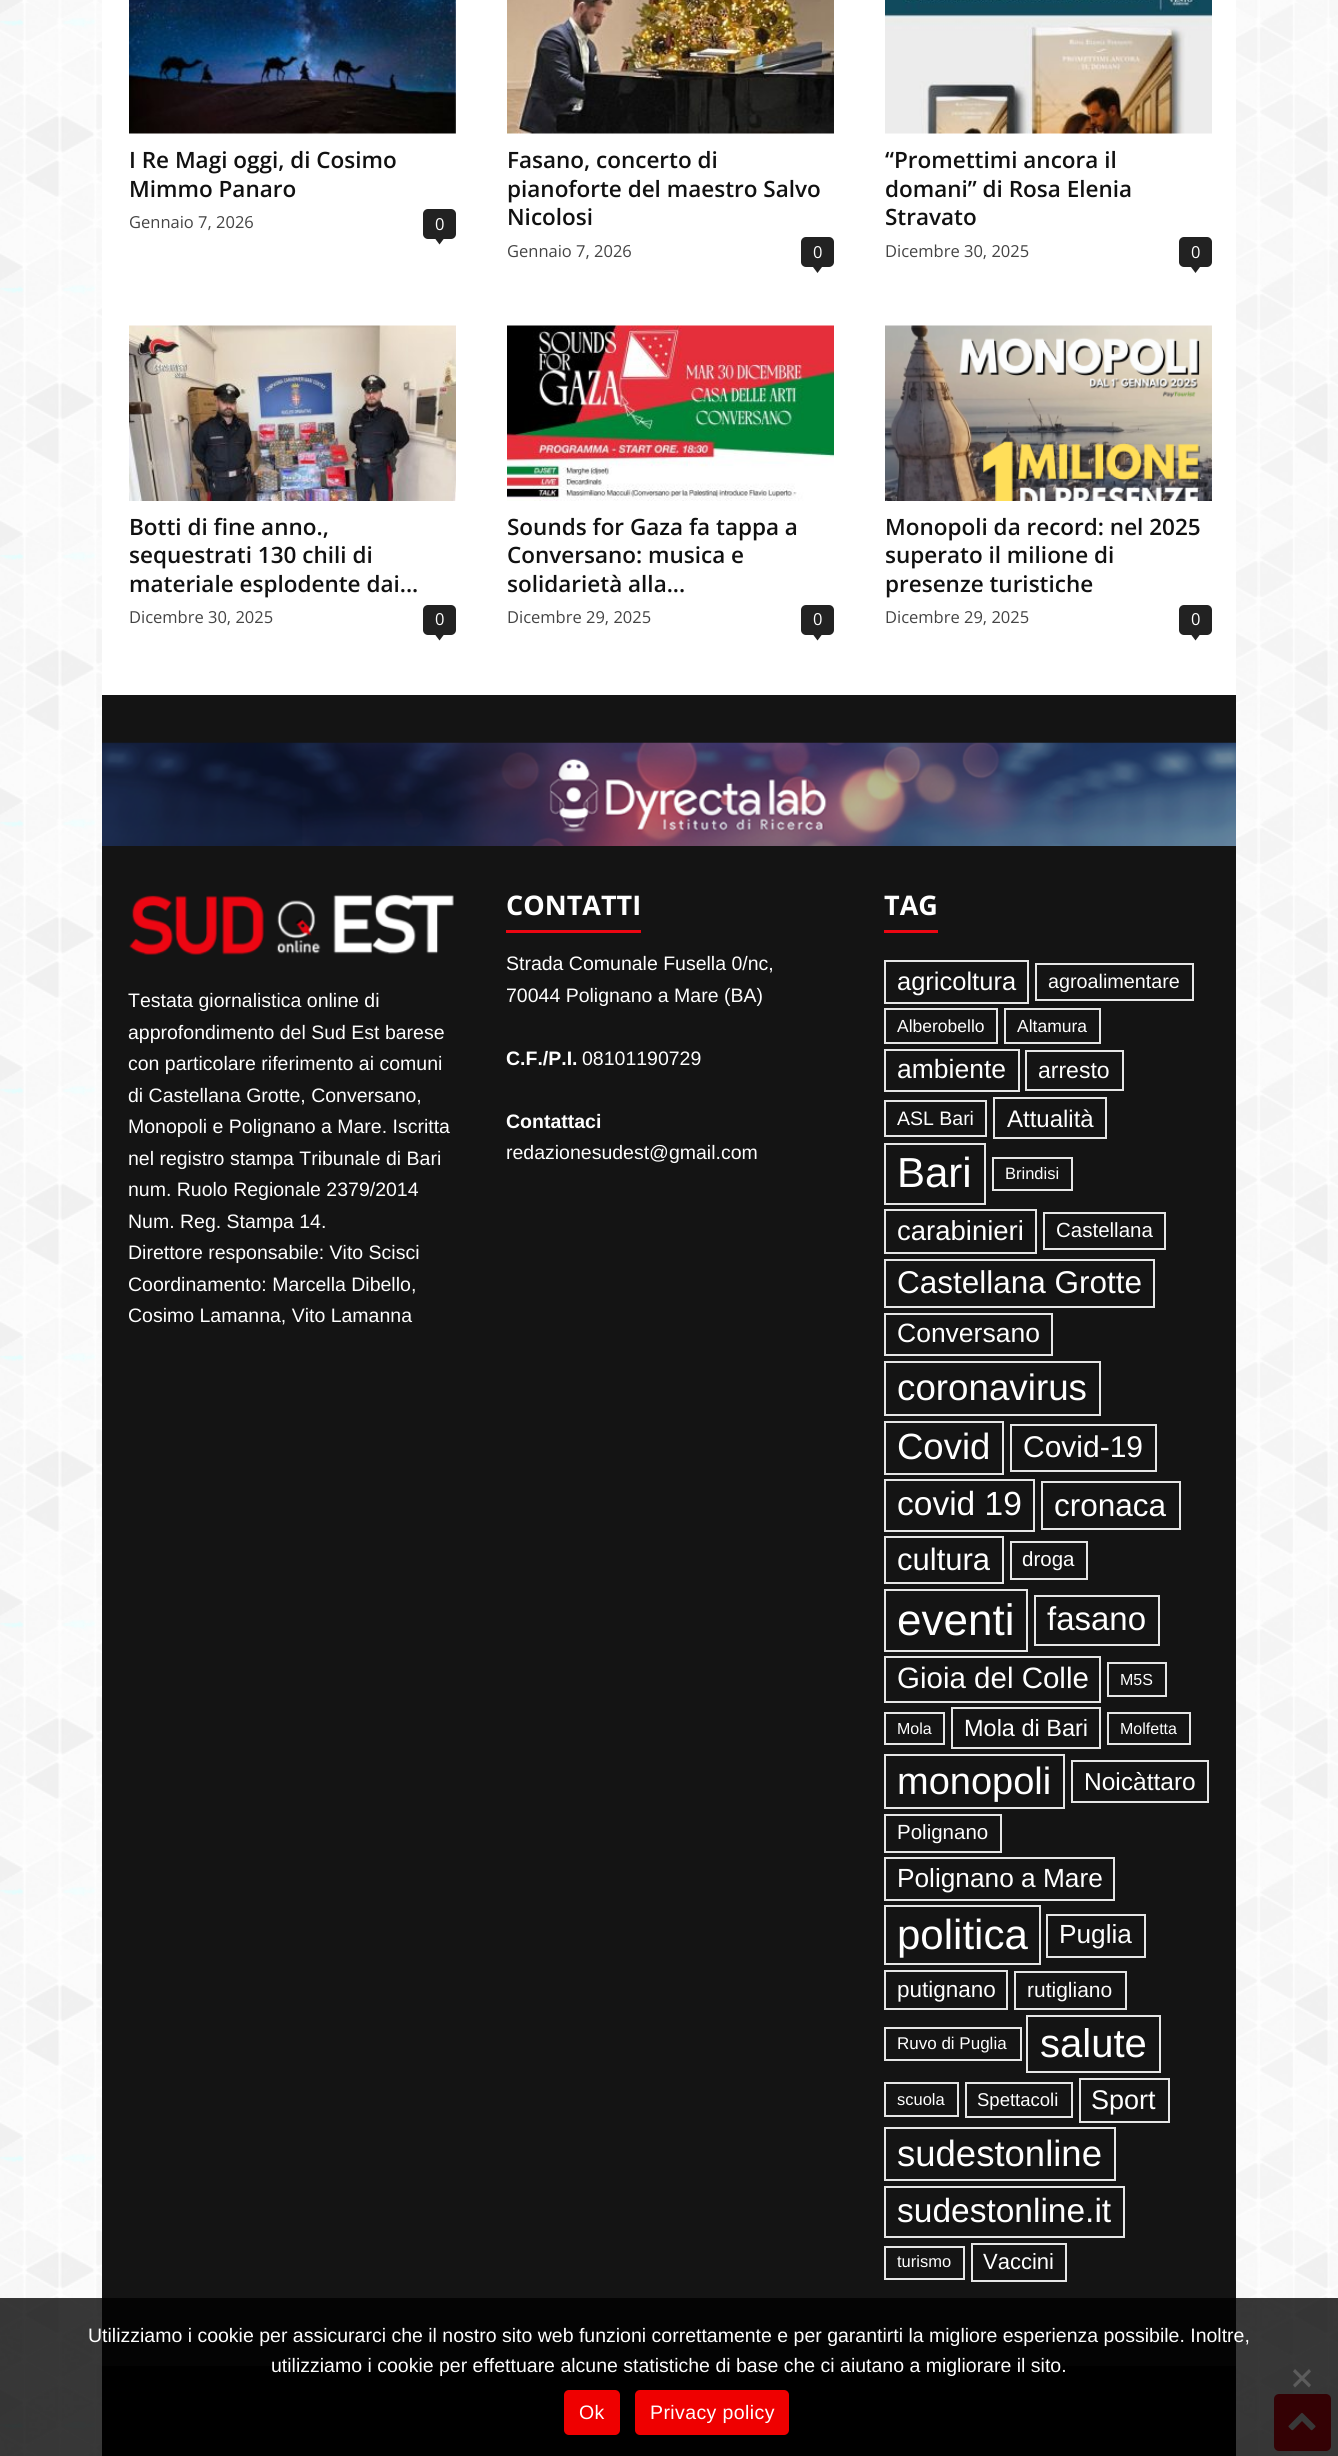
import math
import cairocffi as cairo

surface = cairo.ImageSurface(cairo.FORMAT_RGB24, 1338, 2456)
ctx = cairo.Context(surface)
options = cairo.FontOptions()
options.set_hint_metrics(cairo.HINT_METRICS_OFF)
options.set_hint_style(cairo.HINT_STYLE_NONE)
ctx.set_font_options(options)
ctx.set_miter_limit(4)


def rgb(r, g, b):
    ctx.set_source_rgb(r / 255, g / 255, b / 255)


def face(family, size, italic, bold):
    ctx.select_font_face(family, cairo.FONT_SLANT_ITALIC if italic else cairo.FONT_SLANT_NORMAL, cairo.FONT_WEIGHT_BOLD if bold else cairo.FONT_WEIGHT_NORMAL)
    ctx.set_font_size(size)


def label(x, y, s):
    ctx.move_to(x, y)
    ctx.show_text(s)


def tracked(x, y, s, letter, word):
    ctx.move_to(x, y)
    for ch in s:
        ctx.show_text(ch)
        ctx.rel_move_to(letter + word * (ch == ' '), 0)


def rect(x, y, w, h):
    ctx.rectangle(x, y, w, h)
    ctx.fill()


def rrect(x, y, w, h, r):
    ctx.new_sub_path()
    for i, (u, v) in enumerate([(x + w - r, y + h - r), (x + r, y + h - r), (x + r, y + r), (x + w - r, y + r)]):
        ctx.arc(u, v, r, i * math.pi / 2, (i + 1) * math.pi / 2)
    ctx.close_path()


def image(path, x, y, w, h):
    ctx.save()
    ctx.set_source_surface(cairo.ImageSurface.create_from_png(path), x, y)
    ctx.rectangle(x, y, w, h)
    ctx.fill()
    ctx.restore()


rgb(255, 255, 255)
ctx.paint()
image('image0.png', 0, 0, 1338, 2456)
rgb(255, 255, 255)
rect(102, 0, 1134, 695)
image('image1.png', 129, 0, 327, 134)
face('Open Sans SemiBold', 22.5, 0, 0)
rgb(17, 17, 17)
label(129, 168, 'I Re Magi oggi, di Cosimo')
label(129, 197, 'Mimmo Panaro')
face('Open Sans', 16.5, 0, 0)
rgb(68, 68, 68)
label(129, 228, 'Gennaio 7, 2026')
rgb(34, 34, 34)
rrect(423, 209, 33, 30, 5)
ctx.fill()
rgb(255, 255, 255)
label(435, 230, '0')
rgb(34, 34, 34)
ctx.new_path()
ctx.move_to(435, 238.5)
ctx.line_to(444, 238.5)
ctx.line_to(439.5, 244.5)
ctx.close_path()
ctx.fill()
image('image2.png', 507, 0, 327, 134)
face('Open Sans SemiBold', 22.5, 0, 0)
rgb(17, 17, 17)
label(507, 168, 'Fasano, concerto di')
label(507, 197, 'pianoforte del maestro Salvo')
label(507, 225, 'Nicolosi')
face('Open Sans', 16.5, 0, 0)
rgb(68, 68, 68)
label(507, 257, 'Gennaio 7, 2026')
rgb(34, 34, 34)
rrect(801, 237, 33, 30, 5)
ctx.fill()
rgb(255, 255, 255)
label(813, 258, '0')
rgb(34, 34, 34)
ctx.new_path()
ctx.move_to(813, 267)
ctx.line_to(822, 267)
ctx.line_to(817.5, 273)
ctx.close_path()
ctx.fill()
image('image3.png', 885, 0, 327, 134)
face('Open Sans SemiBold', 22.5, 0, 0)
rgb(17, 17, 17)
label(885, 168, '“Promettimi ancora il')
label(885, 197, 'domani” di Rosa Elenia')
label(885, 225, 'Stravato')
face('Open Sans', 16.5, 0, 0)
rgb(68, 68, 68)
label(885, 257, 'Dicembre 30, 2025')
rgb(34, 34, 34)
rrect(1179, 237, 33, 30, 5)
ctx.fill()
rgb(255, 255, 255)
label(1191, 258, '0')
rgb(34, 34, 34)
ctx.new_path()
ctx.move_to(1191, 267)
ctx.line_to(1200, 267)
ctx.line_to(1195.5, 273)
ctx.close_path()
ctx.fill()
image('image4.png', 129, 325, 327, 176)
face('Open Sans SemiBold', 22.5, 0, 0)
rgb(17, 17, 17)
label(129, 535, 'Botti di fine anno.,')
label(129, 563, 'sequestrati 130 chili di')
label(129, 592, 'materiale esplodente dai...')
face('Open Sans', 16.5, 0, 0)
rgb(68, 68, 68)
label(129, 623, 'Dicembre 30, 2025')
rgb(34, 34, 34)
rrect(423, 605, 33, 30, 5)
ctx.fill()
rgb(255, 255, 255)
label(435, 625, '0')
rgb(34, 34, 34)
ctx.new_path()
ctx.move_to(435, 634.5)
ctx.line_to(444, 634.5)
ctx.line_to(439.5, 640.5)
ctx.close_path()
ctx.fill()
image('image5.png', 507, 325, 327, 176)
face('Open Sans SemiBold', 22.5, 0, 0)
rgb(17, 17, 17)
label(507, 535, 'Sounds for Gaza fa tappa a')
label(507, 563, 'Conversano: musica e')
label(507, 592, 'solidarietà alla...')
face('Open Sans', 16.5, 0, 0)
rgb(68, 68, 68)
label(507, 623, 'Dicembre 29, 2025')
rgb(34, 34, 34)
rrect(801, 605, 33, 30, 5)
ctx.fill()
rgb(255, 255, 255)
label(813, 625, '0')
rgb(34, 34, 34)
ctx.new_path()
ctx.move_to(813, 634.5)
ctx.line_to(822, 634.5)
ctx.line_to(817.5, 640.5)
ctx.close_path()
ctx.fill()
image('image6.png', 885, 325, 327, 176)
face('Open Sans SemiBold', 22.5, 0, 0)
rgb(17, 17, 17)
label(885, 535, 'Monopoli da record: nel 2025')
label(885, 563, 'superato il milione di')
label(885, 592, 'presenze turistiche')
face('Open Sans', 16.5, 0, 0)
rgb(68, 68, 68)
label(885, 623, 'Dicembre 29, 2025')
rgb(34, 34, 34)
rrect(1179, 605, 33, 30, 5)
ctx.fill()
rgb(255, 255, 255)
label(1191, 625, '0')
rgb(34, 34, 34)
ctx.new_path()
ctx.move_to(1191, 634.5)
ctx.line_to(1200, 634.5)
ctx.line_to(1195.5, 640.5)
ctx.close_path()
ctx.fill()
rgb(20, 20, 20)
rect(102, 695, 1134, 1671)
image('image7.png', 102, 742, 1134, 104)
image('image8.png', 129, 894, 325, 61)
face('Liberation Sans', 19.5, 0, 0)
rgb(255, 255, 255)
label(128, 1007, 'Testata giornalistica online di')
label(128, 1039, 'approfondimento del Sud Est barese')
label(128, 1070, 'con particolare riferimento ai comuni')
label(128, 1102, 'di Castellana Grotte, Conversano,')
label(128, 1133, 'Monopoli e Polignano a Mare. Iscritta')
label(128, 1165, 'nel registro stampa Tribunale di Bari')
label(128, 1196, 'num. Ruolo Regionale 2379/2014')
label(128, 1228, 'Num. Reg. Stampa 14.')
label(128, 1259, 'Direttore responsabile: Vito Scisci')
label(128, 1291, 'Coordinamento: Marcella Dibello,')
label(128, 1322, 'Cosimo Lamanna, Vito Lamanna')
face('Open Sans', 27, 0, 1)
label(506, 915, 'CONTATTI')
rgb(236, 6, 18)
rect(506, 930, 135, 3)
face('Liberation Sans', 19.5, 0, 0)
rgb(255, 255, 255)
label(506, 970, 'Strada Comunale Fusella 0/nc,')
label(506, 1002, '70044 Polignano a Mare (BA)')
face('Liberation Sans', 19.5, 0, 1)
label(506, 1065, 'C.F./P.I.')
face('Liberation Sans', 19.5, 0, 0)
label(582, 1065, '08101190729')
face('Liberation Sans', 19.5, 0, 1)
label(506, 1128, 'Contattaci')
face('Liberation Sans', 19.5, 0, 0)
label(506, 1159, 'redazionesudest@gmail.com')
face('Open Sans', 27, 0, 1)
label(884, 915, 'TAG')
rgb(236, 6, 18)
rect(884, 930, 54, 3)
ctx.rectangle(885, 961, 143, 42)
rgb(230, 230, 230)
ctx.stroke()
face('Liberation Sans', 25.5, 0, 0)
rgb(255, 255, 255)
label(897, 990, 'agricoltura')
ctx.rectangle(1036, 964, 157, 36)
rgb(230, 230, 230)
ctx.stroke()
face('Liberation Sans', 19.75, 0, 0)
rgb(255, 255, 255)
label(1048, 988, 'agroalimentare')
ctx.rectangle(885, 1009, 112, 34)
rgb(230, 230, 230)
ctx.stroke()
face('Liberation Sans', 17.5, 0, 0)
rgb(255, 255, 255)
label(897, 1032, 'Alberobello')
ctx.rectangle(1005, 1009, 95, 34)
rgb(230, 230, 230)
ctx.stroke()
rgb(255, 255, 255)
label(1017, 1032, 'Altamura')
ctx.rectangle(885, 1050, 134, 41)
rgb(230, 230, 230)
ctx.stroke()
face('Liberation Sans', 26.5, 0, 0)
rgb(255, 255, 255)
label(897, 1078, 'ambiente')
ctx.rectangle(1026, 1051, 97, 39)
rgb(230, 230, 230)
ctx.stroke()
face('Liberation Sans', 23, 0, 0)
rgb(255, 255, 255)
label(1038, 1078, 'arresto')
ctx.rectangle(885, 1101, 101, 35)
rgb(230, 230, 230)
ctx.stroke()
face('Liberation Sans', 19.5, 0, 0)
rgb(255, 255, 255)
label(897, 1125, 'ASL Bari')
ctx.rectangle(994, 1098, 112, 40)
rgb(230, 230, 230)
ctx.stroke()
face('Liberation Sans', 24, 0, 0)
rgb(255, 255, 255)
label(1007, 1127, 'Attualità')
ctx.rectangle(885, 1144, 100, 60)
rgb(230, 230, 230)
ctx.stroke()
face('Liberation Sans', 42, 0, 0)
rgb(255, 255, 255)
label(897, 1187, 'Bari')
ctx.rectangle(993, 1158, 79, 32)
rgb(230, 230, 230)
ctx.stroke()
face('Liberation Sans', 16.5, 0, 0)
rgb(255, 255, 255)
label(1005, 1179, 'Brindisi')
ctx.rectangle(885, 1210, 151, 43)
rgb(230, 230, 230)
ctx.stroke()
face('Liberation Sans', 27.5, 0, 0)
rgb(255, 255, 255)
label(897, 1240, 'carabinieri')
ctx.rectangle(1044, 1213, 121, 36)
rgb(230, 230, 230)
ctx.stroke()
face('Liberation Sans', 20.5, 0, 0)
rgb(255, 255, 255)
label(1056, 1237, 'Castellana')
ctx.rectangle(885, 1260, 269, 47)
rgb(230, 230, 230)
ctx.stroke()
face('Liberation Sans', 31.5, 0, 0)
rgb(255, 255, 255)
label(897, 1293, 'Castellana Grotte')
ctx.rectangle(885, 1314, 167, 41)
rgb(230, 230, 230)
ctx.stroke()
face('Liberation Sans', 26.5, 0, 0)
rgb(255, 255, 255)
label(897, 1342, 'Conversano')
ctx.rectangle(885, 1362, 215, 53)
rgb(230, 230, 230)
ctx.stroke()
face('Liberation Sans', 36.75, 0, 0)
rgb(255, 255, 255)
label(897, 1400, 'coronavirus')
ctx.rectangle(885, 1422, 118, 52)
rgb(230, 230, 230)
ctx.stroke()
face('Liberation Sans', 36.5, 0, 0)
rgb(255, 255, 255)
label(897, 1459, 'Covid')
ctx.rectangle(1011, 1425, 145, 46)
rgb(230, 230, 230)
ctx.stroke()
face('Liberation Sans', 30, 0, 0)
rgb(255, 255, 255)
label(1023, 1457, 'Covid-19')
ctx.rectangle(885, 1480, 149, 51)
rgb(230, 230, 230)
ctx.stroke()
face('Liberation Sans', 33.5, 0, 0)
rgb(255, 255, 255)
label(897, 1515, 'covid 19')
ctx.rectangle(1042, 1482, 138, 47)
rgb(230, 230, 230)
ctx.stroke()
face('Liberation Sans', 31.5, 0, 0)
rgb(255, 255, 255)
label(1054, 1516, 'cronaca')
ctx.rectangle(885, 1537, 118, 46)
rgb(230, 230, 230)
ctx.stroke()
face('Liberation Sans', 31, 0, 0)
rgb(255, 255, 255)
label(897, 1570, 'cultura')
ctx.rectangle(1011, 1542, 76, 37)
rgb(230, 230, 230)
ctx.stroke()
face('Liberation Sans', 20.5, 0, 0)
rgb(255, 255, 255)
label(1022, 1566, 'droga')
ctx.rectangle(885, 1590, 142, 61)
rgb(230, 230, 230)
ctx.stroke()
face('Liberation Sans', 44, 0, 0)
rgb(255, 255, 255)
label(897, 1635, 'eventi')
ctx.rectangle(1035, 1596, 124, 49)
rgb(230, 230, 230)
ctx.stroke()
face('Liberation Sans', 33, 0, 0)
rgb(255, 255, 255)
label(1047, 1630, 'fasano')
ctx.rectangle(885, 1657, 215, 45)
rgb(230, 230, 230)
ctx.stroke()
face('Liberation Sans', 29.5, 0, 0)
rgb(255, 255, 255)
label(897, 1688, 'Gioia del Colle')
ctx.rectangle(1108, 1663, 58, 33)
rgb(230, 230, 230)
ctx.stroke()
face('Liberation Sans', 16, 0, 0)
rgb(255, 255, 255)
label(1120, 1685, 'M5S')
ctx.rectangle(885, 1713, 59, 31)
rgb(230, 230, 230)
ctx.stroke()
rgb(255, 255, 255)
label(897, 1734, 'Mola')
ctx.rectangle(952, 1708, 148, 40)
rgb(230, 230, 230)
ctx.stroke()
face('Liberation Sans', 23.5, 0, 0)
rgb(255, 255, 255)
label(964, 1736, 'Mola di Bari')
ctx.rectangle(1108, 1713, 82, 31)
rgb(230, 230, 230)
ctx.stroke()
face('Liberation Sans', 16, 0, 0)
rgb(255, 255, 255)
label(1120, 1734, 'Molfetta')
ctx.rectangle(885, 1755, 179, 53)
rgb(230, 230, 230)
ctx.stroke()
face('Liberation Sans', 38, 0, 0)
rgb(255, 255, 255)
label(897, 1794, 'monopoli')
ctx.rectangle(1072, 1761, 136, 41)
rgb(230, 230, 230)
ctx.stroke()
face('Liberation Sans', 24.5, 0, 0)
rgb(255, 255, 255)
label(1084, 1790, 'Noicàttaro')
ctx.rectangle(885, 1815, 116, 37)
rgb(230, 230, 230)
ctx.stroke()
face('Liberation Sans', 20.5, 0, 0)
rgb(255, 255, 255)
label(897, 1839, 'Polignano')
ctx.rectangle(885, 1858, 229, 42)
rgb(230, 230, 230)
ctx.stroke()
face('Liberation Sans', 26.25, 0, 0)
rgb(255, 255, 255)
label(897, 1887, 'Polignano a Mare')
ctx.rectangle(885, 1906, 155, 58)
rgb(230, 230, 230)
ctx.stroke()
face('Liberation Sans', 42, 0, 0)
rgb(255, 255, 255)
label(897, 1949, 'politica')
ctx.rectangle(1047, 1915, 98, 42)
rgb(230, 230, 230)
ctx.stroke()
face('Liberation Sans', 26.25, 0, 0)
rgb(255, 255, 255)
label(1059, 1943, 'Puglia')
ctx.rectangle(885, 1971, 122, 38)
rgb(230, 230, 230)
ctx.stroke()
face('Liberation Sans', 22.5, 0, 0)
rgb(255, 255, 255)
label(897, 1997, 'putignano')
ctx.rectangle(1015, 1972, 111, 37)
rgb(230, 230, 230)
ctx.stroke()
face('Liberation Sans', 21, 0, 0)
rgb(255, 255, 255)
label(1027, 1997, 'rutigliano')
ctx.rectangle(885, 2028, 136, 32)
rgb(230, 230, 230)
ctx.stroke()
face('Liberation Sans', 17, 0, 0)
rgb(255, 255, 255)
label(897, 2049, 'Ruvo di Puglia')
ctx.rectangle(1027, 2016, 133, 56)
rgb(230, 230, 230)
ctx.stroke()
face('Liberation Sans', 40, 0, 0)
rgb(255, 255, 255)
label(1040, 2057, 'salute')
ctx.rectangle(885, 2083, 73, 33)
rgb(230, 230, 230)
ctx.stroke()
face('Liberation Sans', 16.5, 0, 0)
rgb(255, 255, 255)
label(897, 2105, 'scuola')
ctx.rectangle(966, 2083, 106, 34)
rgb(230, 230, 230)
ctx.stroke()
face('Liberation Sans', 18.5, 0, 0)
rgb(255, 255, 255)
label(977, 2106, 'Spettacoli')
ctx.rectangle(1080, 2079, 89, 43)
rgb(230, 230, 230)
ctx.stroke()
face('Liberation Sans', 27, 0, 0)
rgb(255, 255, 255)
label(1091, 2109, 'Sport')
ctx.rectangle(885, 2128, 230, 52)
rgb(230, 230, 230)
ctx.stroke()
face('Liberation Sans', 36.5, 0, 0)
rgb(255, 255, 255)
label(897, 2166, 'sudestonline')
ctx.rectangle(885, 2187, 239, 50)
rgb(230, 230, 230)
ctx.stroke()
face('Liberation Sans', 33.5, 0, 0)
rgb(255, 255, 255)
label(897, 2222, 'sudestonline.it')
ctx.rectangle(885, 2247, 79, 32)
rgb(230, 230, 230)
ctx.stroke()
face('Liberation Sans', 16.5, 0, 0)
rgb(255, 255, 255)
label(897, 2267, 'turismo')
ctx.rectangle(972, 2244, 94, 37)
rgb(230, 230, 230)
ctx.stroke()
face('Liberation Sans', 22, 0, 0)
rgb(255, 255, 255)
label(983, 2269, 'Vaccini')
rgb(0, 0, 0)
rect(102, 2366, 1134, 90)
rgb(236, 6, 18)
rrect(1274, 2394, 57, 57, 5)
ctx.fill()
image('image9.png', 1288, 2412, 28, 19)
ctx.set_source_rgba(0, 0, 0, 0.78)
rect(0, 2298, 1338, 158)
face('Liberation Sans', 19.5, 0, 0)
rgb(255, 255, 255)
label(88, 2342, 'Utilizziamo i cookie per assicurarci che il nostro sito web funzioni correttamente e per garantirti la migliore esperienza possibile. Inoltre,')
label(271, 2372, 'utilizziamo i cookie per effettuare alcune statistiche di base che ci aiutano a migliorare il sito.')
rgb(92, 92, 92)
ctx.new_path()
ctx.move_to(1309, 2369)
ctx.line_to(1311, 2371.5)
ctx.line_to(1295, 2387.5)
ctx.line_to(1293, 2385)
ctx.close_path()
ctx.fill()
ctx.new_path()
ctx.move_to(1293, 2371.5)
ctx.line_to(1295, 2369)
ctx.line_to(1311, 2385)
ctx.line_to(1309, 2387.5)
ctx.close_path()
ctx.fill()
rgb(239, 0, 0)
rrect(564, 2390, 56, 45, 5)
ctx.fill()
rgb(255, 255, 255)
tracked(579, 2419, 'Ok', 0.4, 0)
rgb(239, 0, 0)
rrect(635, 2390, 154, 45, 5)
ctx.fill()
rgb(255, 255, 255)
tracked(650, 2419, 'Privacy policy', 0.4, 0)
surface.write_to_png('render.png')
